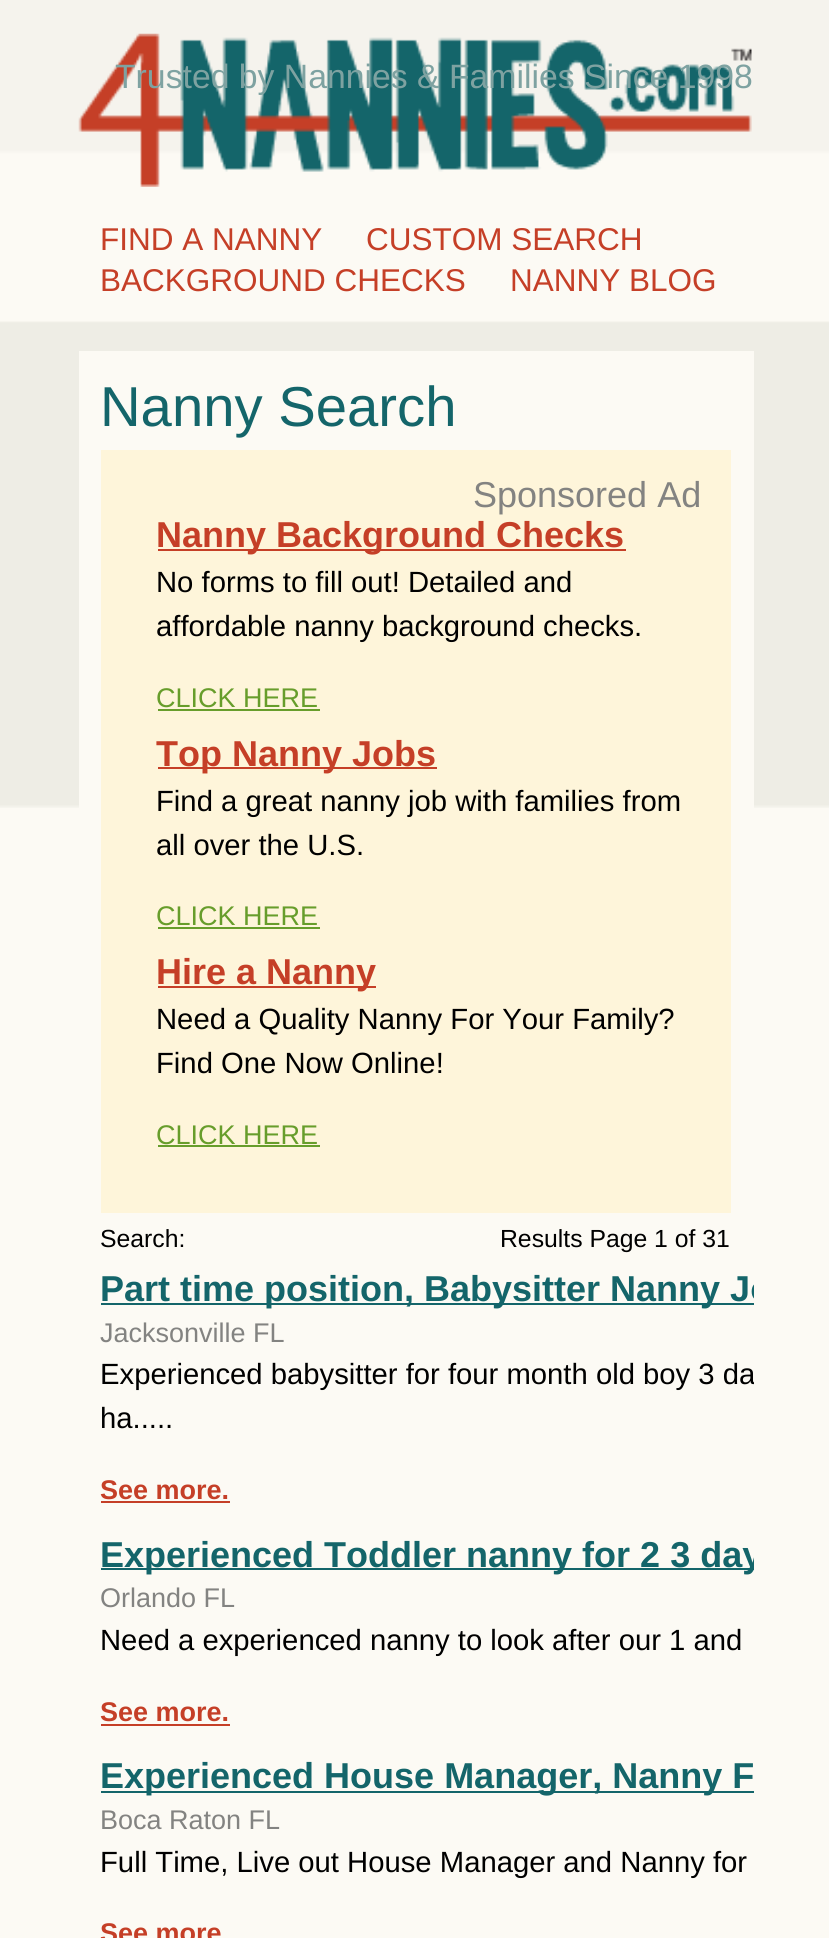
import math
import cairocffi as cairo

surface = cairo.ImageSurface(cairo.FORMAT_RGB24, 829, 1938)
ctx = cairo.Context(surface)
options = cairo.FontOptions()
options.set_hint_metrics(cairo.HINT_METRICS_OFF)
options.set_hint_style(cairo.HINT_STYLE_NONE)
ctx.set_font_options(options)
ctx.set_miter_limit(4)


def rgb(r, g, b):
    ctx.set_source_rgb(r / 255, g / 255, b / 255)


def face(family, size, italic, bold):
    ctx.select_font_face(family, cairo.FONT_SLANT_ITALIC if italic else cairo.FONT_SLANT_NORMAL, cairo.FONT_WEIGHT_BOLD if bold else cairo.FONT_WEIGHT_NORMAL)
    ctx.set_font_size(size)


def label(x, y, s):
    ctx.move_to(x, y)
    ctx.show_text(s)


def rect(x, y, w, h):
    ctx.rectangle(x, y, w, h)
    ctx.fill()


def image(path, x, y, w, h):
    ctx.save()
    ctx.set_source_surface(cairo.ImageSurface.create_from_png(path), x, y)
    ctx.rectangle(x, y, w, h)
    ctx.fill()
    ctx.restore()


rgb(252, 250, 244)
ctx.paint()
image('image0.png', 0, 0, 829, 808)
image('image1.png', 78, 33, 674, 154)
face('Liberation Sans', 33.75, 0, 0)
rgb(126, 162, 161)
label(115, 88, 'Trusted by Nannies & Families Since 1998')
face('Liberation Sans', 31.5, 0, 0)
rgb(197, 63, 39)
label(100, 250, 'FIND A NANNY')
label(366, 250, 'CUSTOM SEARCH')
label(100, 291, 'BACKGROUND CHECKS')
label(510, 291, 'NANNY BLOG')
rgb(252, 250, 244)
rect(79, 351, 675, 457)
face('Liberation Sans', 56.25, 0, 0)
rgb(20, 101, 106)
label(100, 426, 'Nanny Search')
rgb(254, 245, 218)
rect(101, 450, 630, 763)
face('Liberation Sans', 36, 0, 0)
rgb(131, 131, 129)
label(473, 507, 'Sponsored Ad')
rgb(197, 63, 39)
rect(158, 549, 468, 2)
face('Liberation Sans', 36, 0, 1)
label(156, 547, 'Nanny Background Checks')
face('Liberation Sans', 29.25, 0, 0)
rgb(0, 0, 0)
label(156, 592, 'No forms to fill out! Detailed and')
label(156, 636, 'affordable nanny background checks.')
face('Liberation Sans', 27, 0, 0)
rgb(103, 157, 43)
label(156, 707, 'CLICK HERE')
rect(158, 709, 162, 2)
rgb(197, 63, 39)
rect(158, 767, 279, 2)
face('Liberation Sans', 36, 0, 1)
label(156, 766, 'Top Nanny Jobs')
face('Liberation Sans', 29.25, 0, 0)
rgb(0, 0, 0)
label(156, 811, 'Find a great nanny job with families from')
label(156, 855, 'all over the U.S.')
face('Liberation Sans', 27, 0, 0)
rgb(103, 157, 43)
label(156, 925, 'CLICK HERE')
rect(158, 927, 162, 2)
rgb(197, 63, 39)
rect(158, 986, 218, 2)
face('Liberation Sans', 36, 0, 1)
label(156, 984, 'Hire a Nanny')
face('Liberation Sans', 29.25, 0, 0)
rgb(0, 0, 0)
label(156, 1029, 'Need a Quality Nanny For Your Family?')
label(156, 1073, 'Find One Now Online!')
face('Liberation Sans', 27, 0, 0)
rgb(103, 157, 43)
label(156, 1144, 'CLICK HERE')
rect(158, 1145, 162, 2)
face('Liberation Sans', 24.75, 0, 0)
rgb(0, 0, 0)
label(100, 1247, 'Search:')
label(500, 1247, 'Results Page 1 of 31')
rgb(20, 101, 106)
rect(101, 1303, 653, 2)
ctx.save()
ctx.rectangle(79, 351, 675, 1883)
ctx.clip()
face('Liberation Sans', 36, 0, 1)
label(100, 1301, 'Part time position, Babysitter Nanny Jo')
ctx.restore()
face('Liberation Sans', 27, 0, 0)
rgb(131, 131, 129)
label(100, 1342, 'Jacksonville FL')
ctx.save()
ctx.rectangle(79, 351, 675, 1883)
ctx.clip()
face('Liberation Sans', 29.25, 0, 0)
rgb(0, 0, 0)
label(100, 1384, 'Experienced babysitter for four month old boy 3 da')
ctx.restore()
face('Liberation Sans', 29.25, 0, 0)
rgb(0, 0, 0)
label(100, 1428, 'ha.....')
face('Liberation Sans', 27, 0, 1)
rgb(197, 63, 39)
label(100, 1499, 'See more.')
rect(101, 1501, 129, 2)
rgb(20, 101, 106)
rect(101, 1568, 653, 2)
ctx.save()
ctx.rectangle(79, 351, 675, 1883)
ctx.clip()
face('Liberation Sans', 36, 0, 1)
label(100, 1567, 'Experienced Toddler nanny for 2 3 day')
ctx.restore()
face('Liberation Sans', 27, 0, 0)
rgb(131, 131, 129)
label(100, 1607, 'Orlando FL')
face('Liberation Sans', 29.25, 0, 0)
rgb(0, 0, 0)
label(100, 1650, 'Need a experienced nanny to look after our 1 and')
face('Liberation Sans', 27, 0, 1)
rgb(197, 63, 39)
label(100, 1721, 'See more.')
rect(101, 1724, 129, 2)
rgb(20, 101, 106)
rect(101, 1791, 653, 2)
face('Liberation Sans', 36, 0, 1)
label(100, 1788, 'Experienced House Manager, Nanny F')
face('Liberation Sans', 27, 0, 0)
rgb(131, 131, 129)
label(100, 1829, 'Boca Raton FL')
face('Liberation Sans', 29.25, 0, 0)
rgb(0, 0, 0)
label(100, 1872, 'Full Time, Live out House Manager and Nanny for')
face('Liberation Sans', 27, 0, 1)
rgb(197, 63, 39)
label(100, 1942, 'See more')
surface.write_to_png('render.png')
